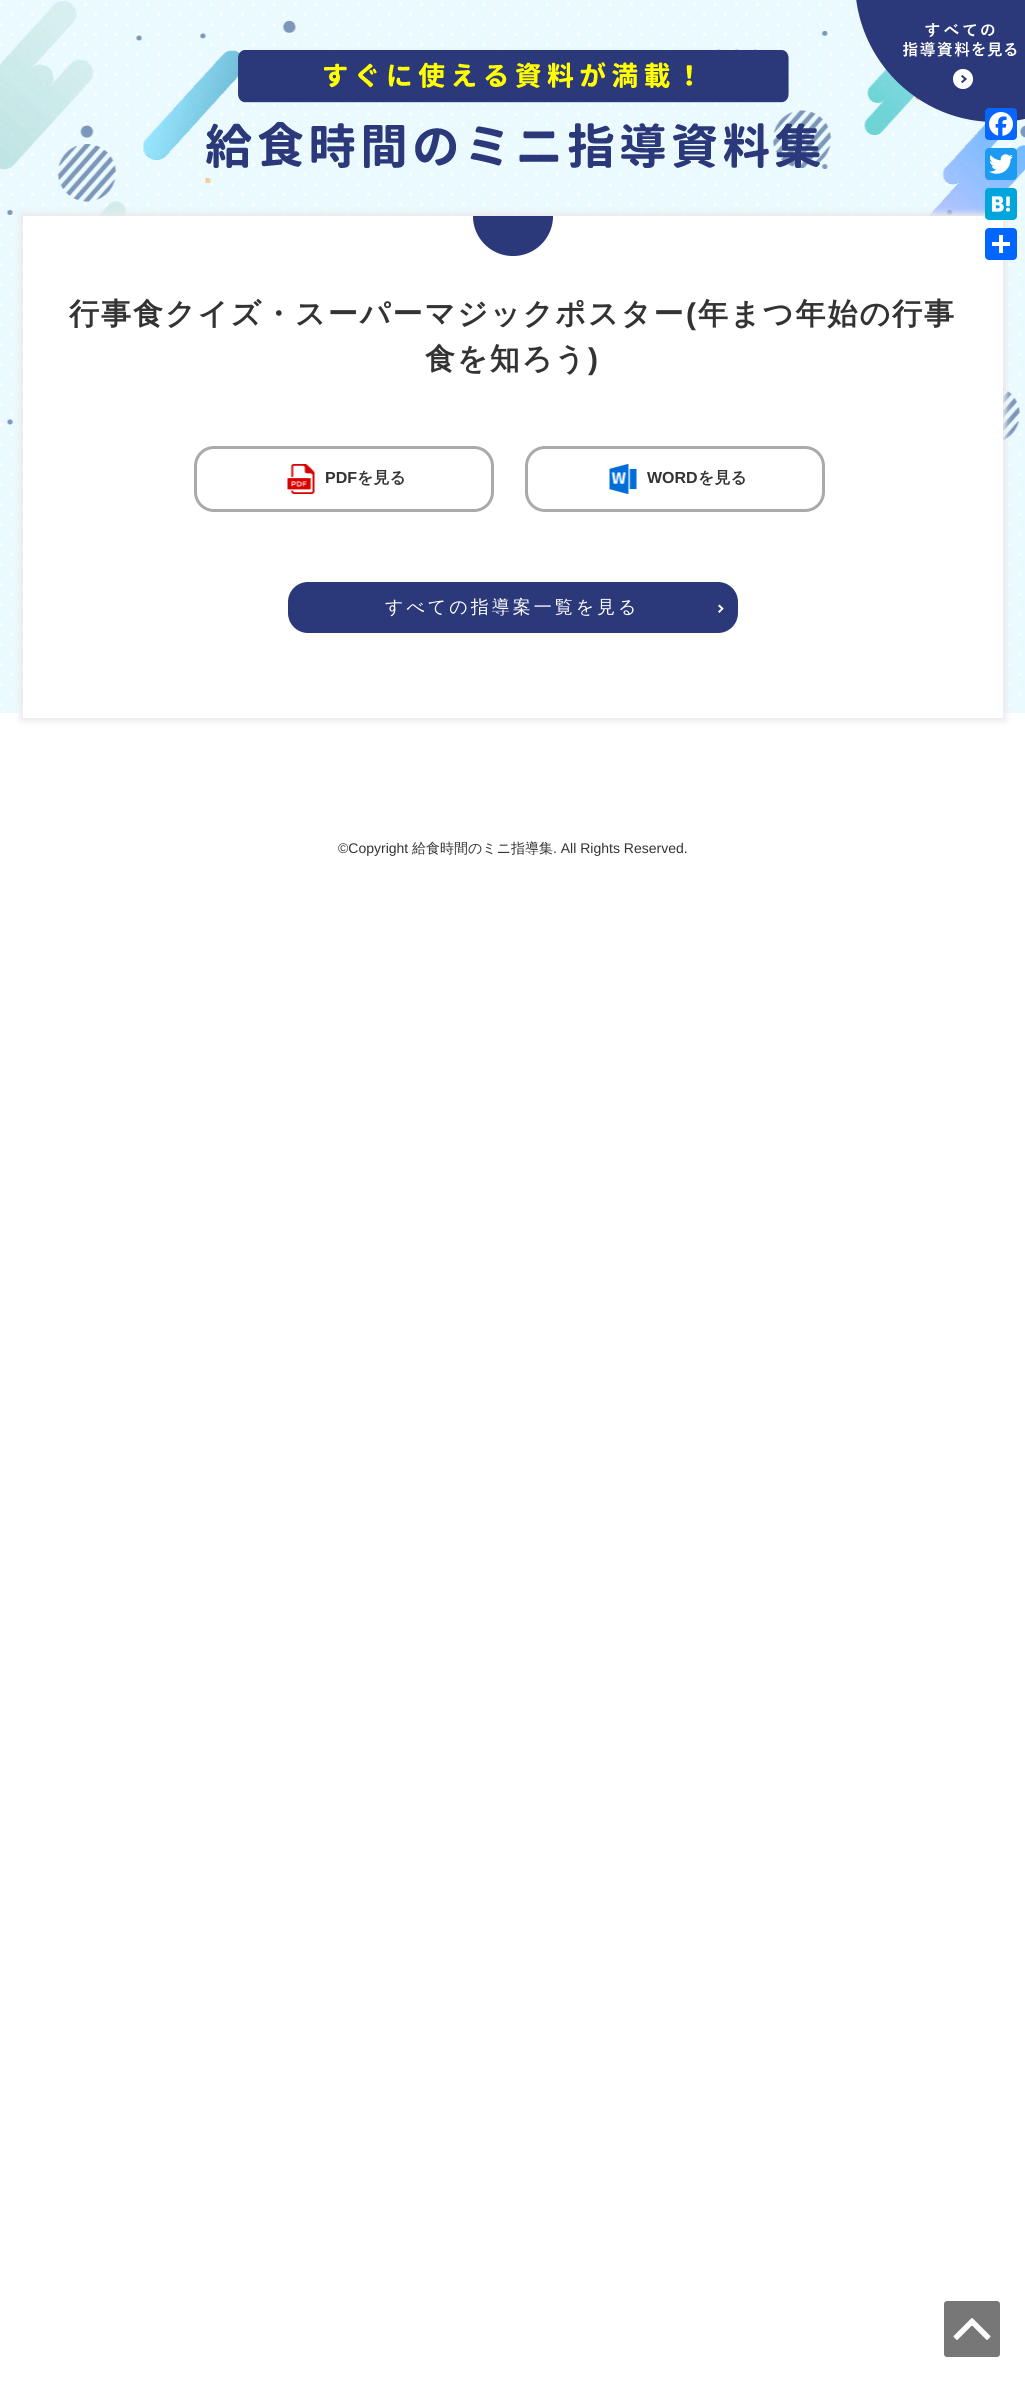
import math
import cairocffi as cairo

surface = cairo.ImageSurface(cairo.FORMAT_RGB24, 1025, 2390)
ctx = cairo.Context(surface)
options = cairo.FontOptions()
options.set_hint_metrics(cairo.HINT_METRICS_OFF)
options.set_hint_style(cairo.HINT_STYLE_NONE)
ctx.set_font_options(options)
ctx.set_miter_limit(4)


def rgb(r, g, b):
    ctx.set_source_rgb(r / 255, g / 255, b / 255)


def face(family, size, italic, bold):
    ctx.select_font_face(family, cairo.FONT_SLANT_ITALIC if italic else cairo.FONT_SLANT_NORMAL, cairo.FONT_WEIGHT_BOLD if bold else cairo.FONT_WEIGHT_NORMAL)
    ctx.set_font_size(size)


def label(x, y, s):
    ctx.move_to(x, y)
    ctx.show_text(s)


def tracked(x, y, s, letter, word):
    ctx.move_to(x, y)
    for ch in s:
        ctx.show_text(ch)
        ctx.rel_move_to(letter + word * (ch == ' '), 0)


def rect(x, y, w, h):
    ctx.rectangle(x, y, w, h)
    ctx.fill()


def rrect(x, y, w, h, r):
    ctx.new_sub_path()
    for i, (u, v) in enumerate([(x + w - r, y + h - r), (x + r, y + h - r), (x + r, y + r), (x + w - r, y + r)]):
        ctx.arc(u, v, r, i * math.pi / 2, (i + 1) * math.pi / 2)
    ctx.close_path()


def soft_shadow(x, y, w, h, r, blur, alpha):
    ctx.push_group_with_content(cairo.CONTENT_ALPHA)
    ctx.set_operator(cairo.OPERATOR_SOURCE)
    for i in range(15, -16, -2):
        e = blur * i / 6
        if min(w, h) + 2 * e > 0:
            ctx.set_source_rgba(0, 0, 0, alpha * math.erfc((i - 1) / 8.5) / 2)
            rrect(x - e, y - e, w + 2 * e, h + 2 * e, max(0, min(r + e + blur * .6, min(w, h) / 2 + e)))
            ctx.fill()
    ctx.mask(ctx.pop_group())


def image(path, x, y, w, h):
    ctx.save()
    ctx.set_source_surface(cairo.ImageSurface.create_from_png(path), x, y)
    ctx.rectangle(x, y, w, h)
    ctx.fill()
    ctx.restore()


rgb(255, 255, 255)
ctx.paint()
image('image0.png', 0, 0, 1025, 713)
image('image4.png', 0, 1, 1025, 440)
image('image9.png', 856, 0, 169, 122)
rgb(8, 102, 255)
rrect(985, 108, 32, 32, 4)
ctx.fill()
image('image1.png', 989, 112, 24, 24)
rgb(29, 155, 240)
rrect(985, 148, 32, 32, 4)
ctx.fill()
image('image2.png', 989, 154, 24, 20)
rgb(234, 234, 234)
soft_shadow(20, 213, 986, 508, 0, 3, 1)
rgb(255, 255, 255)
rect(23, 216, 980, 502)
rgb(0, 166, 219)
rrect(985, 188, 32, 32, 4)
ctx.fill()
image('image3.png', 991, 196, 19, 16)
rgb(1, 102, 255)
rrect(985, 228, 32, 32, 4)
ctx.fill()
rgb(255, 255, 255)
rect(999, 235, 4, 18)
rect(992, 242, 18, 4)
image('image5.png', 206, 50, 614, 118)
image('image6.png', 473, 216, 80, 40)
face('WenQuanYi Zen Hei', 30, 0, 1)
rgb(51, 51, 51)
tracked(69, 324, '行事食クイズ・スーパーマジックポスター', 2, 0)
face('Liberation Sans', 30, 0, 1)
tracked(686, 324, '(', 2, 0)
face('WenQuanYi Zen Hei', 30, 0, 1)
tracked(698, 324, '年まつ年始の行事', 2, 0)
tracked(425, 369, '食を知ろう', 2, 0)
face('Liberation Sans', 30, 0, 1)
tracked(588, 369, ')', 2, 0)
rrect(195.5, 447.5, 297, 63, 18.5)
rgb(170, 170, 170)
ctx.set_line_width(3)
ctx.stroke()
image('image7.png', 287, 464, 28, 30)
face('Liberation Sans', 16, 0, 1)
rgb(51, 51, 51)
label(325, 483, 'PDF')
face('WenQuanYi Zen Hei', 16, 0, 1)
label(357, 483, 'を見る')
rrect(526.5, 447.5, 297, 63, 18.5)
rgb(170, 170, 170)
ctx.stroke()
image('image8.png', 609, 464, 28, 30)
face('Liberation Sans', 16, 0, 1)
rgb(51, 51, 51)
label(647, 483, 'WORD')
face('WenQuanYi Zen Hei', 16, 0, 1)
label(698, 483, 'を見る')
rgb(43, 56, 122)
rrect(288, 582, 450, 51, 20)
ctx.fill()
face('WenQuanYi Zen Hei Medium', 18, 0, 0)
rgb(255, 255, 255)
tracked(385, 613, 'すべての指導案一覧を見る', 3, 0)
ctx.new_path()
ctx.move_to(719.5, 604.5)
ctx.line_to(723.5, 608.5)
ctx.line_to(722.5, 610)
ctx.line_to(718, 606)
ctx.close_path()
ctx.fill()
ctx.new_path()
ctx.move_to(722.5, 607.5)
ctx.line_to(723.5, 608.5)
ctx.line_to(719.5, 613)
ctx.line_to(718, 611.5)
ctx.close_path()
ctx.fill()
face('Liberation Sans', 14, 0, 0)
rgb(51, 51, 51)
label(338, 853, '©Copyright')
face('WenQuanYi Zen Hei Medium', 14, 0, 0)
label(412, 853, '給食時間のミニ指導集')
face('Liberation Sans', 14, 0, 0)
label(553, 853, '. All Rights Reserved.')
image('image10.png', 944, 2301, 56, 56)
surface.write_to_png('render.png')
